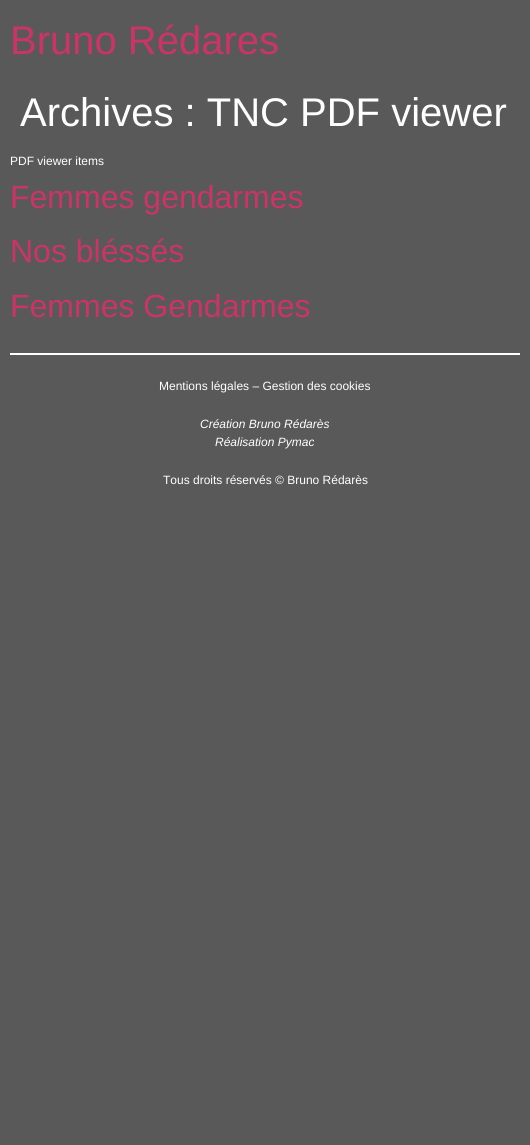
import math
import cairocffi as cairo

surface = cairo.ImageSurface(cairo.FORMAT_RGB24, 530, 1145)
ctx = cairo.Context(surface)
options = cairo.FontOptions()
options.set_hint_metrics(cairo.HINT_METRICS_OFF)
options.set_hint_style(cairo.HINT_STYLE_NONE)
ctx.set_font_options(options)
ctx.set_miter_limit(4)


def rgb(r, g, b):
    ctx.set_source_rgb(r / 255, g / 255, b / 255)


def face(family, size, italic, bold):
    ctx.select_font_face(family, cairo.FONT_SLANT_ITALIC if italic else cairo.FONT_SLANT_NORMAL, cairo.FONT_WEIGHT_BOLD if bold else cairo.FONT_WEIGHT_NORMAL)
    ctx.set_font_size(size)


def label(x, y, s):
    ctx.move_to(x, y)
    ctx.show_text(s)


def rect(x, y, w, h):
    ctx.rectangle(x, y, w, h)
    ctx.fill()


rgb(89, 89, 89)
ctx.paint()
face('Liberation Sans', 40, 0, 0)
rgb(204, 51, 102)
label(10, 54, 'Bruno Rédares')
rgb(255, 255, 255)
label(20, 126, 'Archives : TNC PDF viewer')
face('Liberation Sans', 12, 0, 0)
label(10, 165, 'PDF viewer items')
face('Liberation Sans', 32, 0, 0)
rgb(204, 51, 102)
label(10, 208, 'Femmes gendarmes')
label(10, 262, 'Nos bléssés')
label(10, 317, 'Femmes Gendarmes')
rgb(255, 255, 255)
rect(10, 353, 510, 2)
face('Liberation Sans', 12, 0, 0)
label(159, 390, 'Mentions légales – Gestion des cookies')
face('Liberation Sans', 12, 1, 0)
label(200, 428, 'Création Bruno Rédarès')
label(215, 446, 'Réalisation Pymac')
face('Liberation Sans', 12, 0, 0)
label(163, 484, 'Tous droits réservés © Bruno Rédarès')
surface.write_to_png('render.png')
